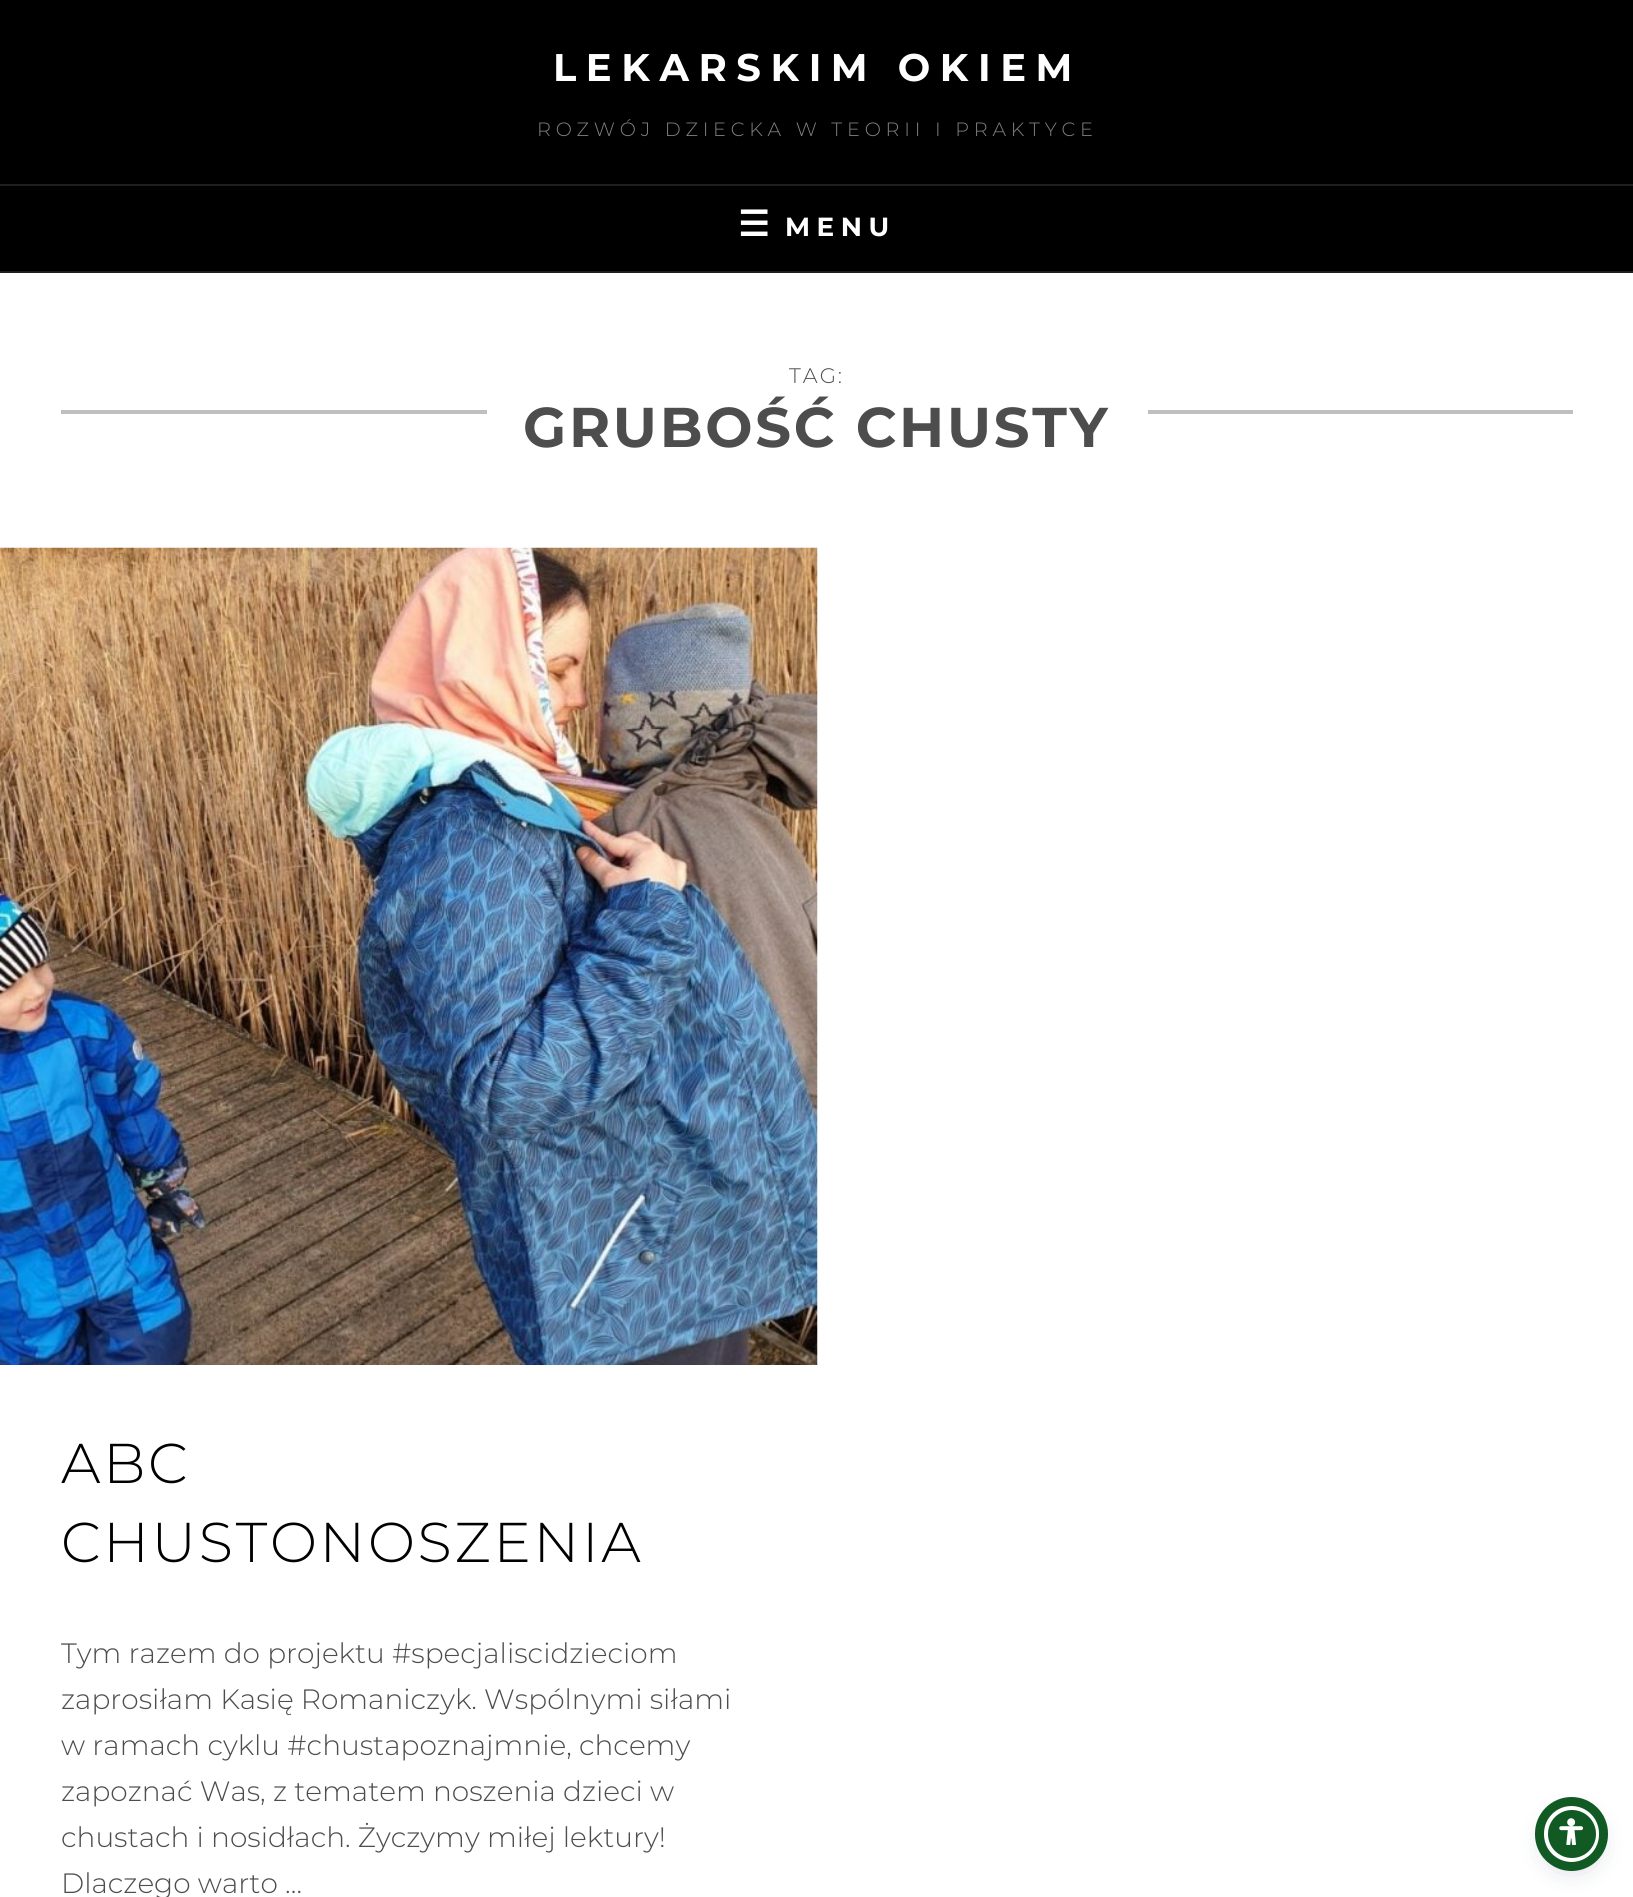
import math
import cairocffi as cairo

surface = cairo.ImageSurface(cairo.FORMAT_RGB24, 1633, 1897)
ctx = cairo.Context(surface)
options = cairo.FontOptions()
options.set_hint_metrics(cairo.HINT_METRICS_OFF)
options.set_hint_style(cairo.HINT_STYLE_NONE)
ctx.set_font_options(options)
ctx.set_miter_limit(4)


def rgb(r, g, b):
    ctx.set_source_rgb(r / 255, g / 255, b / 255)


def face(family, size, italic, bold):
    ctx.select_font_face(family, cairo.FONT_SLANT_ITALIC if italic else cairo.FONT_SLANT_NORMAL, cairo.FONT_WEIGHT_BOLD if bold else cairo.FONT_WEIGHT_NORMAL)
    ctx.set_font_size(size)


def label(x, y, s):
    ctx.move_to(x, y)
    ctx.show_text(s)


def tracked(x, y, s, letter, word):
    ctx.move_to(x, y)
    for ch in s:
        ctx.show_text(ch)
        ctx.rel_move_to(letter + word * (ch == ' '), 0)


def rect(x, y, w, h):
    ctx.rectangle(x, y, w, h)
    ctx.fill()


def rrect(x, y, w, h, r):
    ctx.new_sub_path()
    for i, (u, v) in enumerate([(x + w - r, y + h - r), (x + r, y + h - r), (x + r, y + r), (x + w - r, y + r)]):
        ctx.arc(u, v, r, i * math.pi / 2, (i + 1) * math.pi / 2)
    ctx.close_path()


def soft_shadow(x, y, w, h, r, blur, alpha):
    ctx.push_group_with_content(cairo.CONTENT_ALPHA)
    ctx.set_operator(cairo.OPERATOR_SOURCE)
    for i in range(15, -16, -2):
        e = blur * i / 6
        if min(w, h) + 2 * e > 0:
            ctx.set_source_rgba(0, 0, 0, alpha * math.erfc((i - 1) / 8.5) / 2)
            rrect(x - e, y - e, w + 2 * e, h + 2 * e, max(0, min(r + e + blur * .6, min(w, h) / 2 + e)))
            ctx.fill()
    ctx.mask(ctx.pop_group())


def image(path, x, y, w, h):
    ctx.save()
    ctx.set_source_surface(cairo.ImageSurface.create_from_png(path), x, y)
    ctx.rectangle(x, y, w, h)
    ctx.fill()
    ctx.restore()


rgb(255, 255, 255)
ctx.paint()
rgb(0, 0, 0)
rect(0, 0, 1633, 271)
face('Montserrat', 38.5, 0, 1)
rgb(255, 255, 255)
tracked(553, 81, 'LEKARSKIM OKIEM', 9.6, 0)
face('Montserrat Light', 19.25, 0, 0)
rgb(128, 128, 128)
tracked(537, 136, 'ROZWÓJ DZIECKA W TEORII I PRAKTYCE', 4.8, 0)
rgb(31, 31, 31)
rect(0, 184, 1633, 2)
face('DejaVu Sans', 35, 0, 1)
rgb(255, 255, 255)
tracked(738, 236, '☰', 6.5, 0)
face('Montserrat', 26.25, 0, 1)
tracked(785, 236, 'MENU', 6.5, 0)
rgb(31, 31, 31)
rect(0, 271, 1633, 2)
rgb(191, 191, 191)
rect(61, 410, 1512, 4)
rgb(255, 255, 255)
rect(487, 410, 661, 4)
face('Montserrat Light', 21, 0, 0)
rgb(77, 77, 77)
tracked(789, 383, 'TAG:', 2, 0)
face('Montserrat', 56, 0, 1)
tracked(523, 447, 'GRUBOŚĆ CHUSTY', 2.75, 0)
image('image0.png', 0, 547, 818, 818)
face('Montserrat Light', 56, 0, 0)
rgb(0, 0, 0)
tracked(61, 1483, 'ABC', 2.75, 0)
tracked(61, 1562, 'CHUSTONOSZENIA', 2.75, 0)
face('Montserrat Light', 28, 0, 0)
rgb(77, 77, 77)
label(61, 1663, 'Tym razem do projektu #specjaliscidzieciom')
label(61, 1709, 'zaprosiłam Kasię Romaniczyk. Wspólnymi siłami')
label(61, 1755, 'w ramach cyklu #chustapoznajmnie, chcemy')
label(61, 1801, 'zapoznać Was, z tematem noszenia dzieci w')
label(61, 1847, 'chustach i nosidłach. Życzymy miłej lektury!')
label(61, 1893, 'Dlaczego warto …')
rgb(93, 100, 148)
soft_shadow(1544, 1810, 56, 56, 28, 3.5, 0.2)
rgb(37, 44, 97)
soft_shadow(1544, 1815, 56, 56, 28, 13, 0.15)
rgb(17, 90, 35)
ctx.arc(1572, 1834, 26, 0, 2 * math.pi)
ctx.fill_preserve()
rgb(255, 255, 255)
ctx.set_line_width(4)
ctx.stroke()
rrect(1539.5, 1801.5, 64, 65, 32)
rgb(17, 90, 35)
ctx.set_line_width(9)
ctx.stroke()
image('image1.png', 1559, 1818, 24, 27)
surface.write_to_png('render.png')
